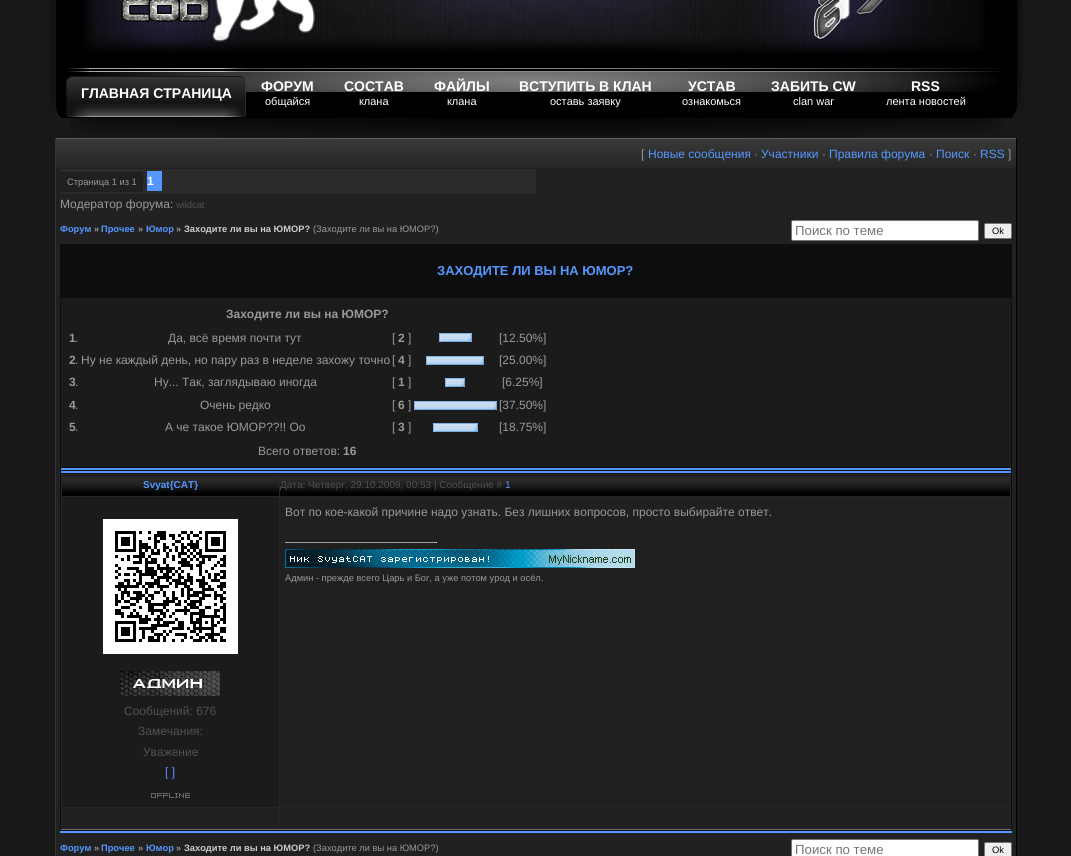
import math
import cairocffi as cairo

surface = cairo.ImageSurface(cairo.FORMAT_RGB24, 1071, 856)
ctx = cairo.Context(surface)
options = cairo.FontOptions()
options.set_hint_metrics(cairo.HINT_METRICS_OFF)
options.set_hint_style(cairo.HINT_STYLE_NONE)
ctx.set_font_options(options)
ctx.set_miter_limit(4)


def rgb(r, g, b):
    ctx.set_source_rgb(r / 255, g / 255, b / 255)


def face(family, size, italic, bold):
    ctx.select_font_face(family, cairo.FONT_SLANT_ITALIC if italic else cairo.FONT_SLANT_NORMAL, cairo.FONT_WEIGHT_BOLD if bold else cairo.FONT_WEIGHT_NORMAL)
    ctx.set_font_size(size)


def label(x, y, s):
    ctx.move_to(x, y)
    ctx.show_text(s)


def rect(x, y, w, h):
    ctx.rectangle(x, y, w, h)
    ctx.fill()


def rrect(x, y, w, h, r):
    ctx.new_sub_path()
    for i, (u, v) in enumerate([(x + w - r, y + h - r), (x + r, y + h - r), (x + r, y + r), (x + w - r, y + r)]):
        ctx.arc(u, v, r, i * math.pi / 2, (i + 1) * math.pi / 2)
    ctx.close_path()


def image(path, x, y, w, h):
    ctx.save()
    ctx.set_source_surface(cairo.ImageSurface.create_from_png(path), x, y)
    ctx.rectangle(x, y, w, h)
    ctx.fill()
    ctx.restore()


rgb(24, 24, 24)
ctx.paint()
image('image0.png', 49, 0, 974, 118)
image('image1.png', 84, 0, 901, 53)
image('image2.png', 85, 68, 916, 24)
image('image3.png', 86, 68, 913, 24)
image('image4.png', 90, 68, 132, 49)
image('image5.png', 66, 68, 25, 49)
image('image6.png', 222, 68, 24, 49)
face('Liberation Sans', 14, 0, 1)
rgb(255, 255, 255)
label(81, 98, 'ГЛАВНАЯ СТРАНИЦА')
label(261, 91, 'ФОРУМ')
face('Liberation Sans', 11, 0, 0)
label(265, 105, 'общайся')
face('Liberation Sans', 14, 0, 1)
label(344, 91, 'СОСТАВ')
face('Liberation Sans', 11, 0, 0)
label(359, 105, 'клана')
face('Liberation Sans', 14, 0, 1)
label(434, 91, 'ФАЙЛЫ')
face('Liberation Sans', 11, 0, 0)
label(447, 105, 'клана')
face('Liberation Sans', 14, 0, 1)
label(519, 91, 'ВСТУПИТЬ В КЛАН')
face('Liberation Sans', 11, 0, 0)
label(550, 105, 'оставь заявку')
face('Liberation Sans', 14, 0, 1)
label(688, 91, 'УСТАВ')
face('Liberation Sans', 11, 0, 0)
label(682, 105, 'ознакомься')
face('Liberation Sans', 14, 0, 1)
label(771, 91, 'ЗАБИТЬ CW')
face('Liberation Sans', 11, 0, 0)
label(793, 105, 'clan war')
face('Liberation Sans', 14, 0, 1)
label(911, 91, 'RSS')
face('Liberation Sans', 11, 0, 0)
label(886, 105, 'лента новостей')
image('image7.png', 70, 118, 933, 20)
rgb(33, 33, 33)
rect(56, 168, 960, 688)
image('image8.png', 56, 139, 960, 29)
rgb(94, 94, 94)
rect(55, 138, 962, 1)
rgb(0, 0, 0)
rect(1016, 138, 1, 718)
rgb(51, 51, 51)
rect(55, 138, 1, 718)
face('Liberation Sans', 12, 0, 0)
rgb(153, 153, 153)
label(641, 158, '[')
rgb(84, 151, 254)
label(648, 158, 'Новые сообщения')
rgb(153, 153, 153)
label(754, 158, '·')
rgb(84, 151, 254)
label(761, 158, 'Участники')
rgb(153, 153, 153)
label(822, 158, '·')
rgb(84, 151, 254)
label(829, 158, 'Правила форума')
rgb(153, 153, 153)
label(929, 158, '·')
rgb(84, 151, 254)
label(936, 158, 'Поиск')
rgb(153, 153, 153)
label(973, 158, '·')
rgb(84, 151, 254)
label(980, 158, 'RSS')
rgb(153, 153, 153)
label(1008, 158, ']')
rgb(43, 43, 43)
rect(60, 169, 476, 25)
rgb(32, 32, 32)
rect(60, 172, 83, 20)
face('Liberation Sans', 9.3, 0, 0)
rgb(153, 153, 153)
label(67, 185, 'Страница 1 из 1')
rgb(84, 151, 254)
rect(147, 171, 15, 20)
face('Liberation Sans', 12, 0, 1)
rgb(255, 255, 255)
label(147, 185, '1')
face('Liberation Sans', 12, 0, 0)
rgb(153, 153, 153)
label(60, 208, 'Модератор форума:')
face('Liberation Sans', 9.3, 0, 0)
rgb(80, 80, 80)
label(176, 208, 'wildcat')
face('Liberation Sans', 9.3, 0, 1)
rgb(84, 151, 254)
label(60, 232, 'Форум')
rgb(153, 153, 153)
label(94, 232, '»')
rgb(84, 151, 254)
label(101, 232, 'Прочее')
rgb(153, 153, 153)
label(138, 232, '»')
rgb(84, 151, 254)
label(146, 232, 'Юмор')
rgb(153, 153, 153)
label(176, 232, '»')
rgb(204, 204, 204)
label(184, 232, 'Заходите ли вы на ЮМОР?')
face('Liberation Sans', 9.3, 0, 0)
rgb(153, 153, 153)
label(313, 232, '(Заходите ли вы на ЮМОР?)')
rgb(255, 255, 255)
rrect(791.5, 220.5, 187, 20, 1.5)
ctx.fill_preserve()
rgb(118, 118, 118)
ctx.set_line_width(1)
ctx.stroke()
face('Liberation Sans', 13.25, 0, 0)
rgb(117, 117, 117)
label(795, 235, 'Поиск по теме')
rgb(239, 239, 239)
rrect(984.5, 223.5, 27, 15, 1.5)
ctx.fill_preserve()
rgb(118, 118, 118)
ctx.stroke()
face('Liberation Sans', 9.3, 0, 0)
rgb(0, 0, 0)
label(992, 234, 'Ok')
rgb(13, 13, 13)
rect(60, 244, 952, 587)
rgb(84, 151, 254)
rect(60, 831, 952, 2)
face('Liberation Sans', 13, 0, 1)
label(437, 275, 'ЗАХОДИТЕ ЛИ ВЫ НА ЮМОР?')
rgb(27, 27, 27)
rect(61, 298, 950, 169)
face('Liberation Sans', 12, 0, 1)
rgb(153, 153, 153)
label(226, 318, 'Заходите ли вы на ЮМОР?')
label(69, 342, '1')
face('Liberation Sans', 12, 0, 0)
label(75, 342, '.')
label(168, 342, 'Да, всё время почти тут')
label(392, 342, '[')
face('Liberation Sans', 12, 0, 1)
label(398, 342, '2')
face('Liberation Sans', 12, 0, 0)
label(408, 342, ']')
image('image9.png', 439, 333, 4, 9)
image('image10.png', 443, 333, 25, 9)
image('image11.png', 468, 333, 4, 9)
label(499, 342, '[12.50%]')
face('Liberation Sans', 12, 0, 1)
label(69, 364, '2')
face('Liberation Sans', 12, 0, 0)
label(75, 364, '.')
label(81, 364, 'Ну не каждый день, но пару раз в неделе захожу точно')
label(392, 364, '[')
face('Liberation Sans', 12, 0, 1)
label(398, 364, '4')
face('Liberation Sans', 12, 0, 0)
label(408, 364, ']')
image('image9.png', 426, 356, 4, 9)
image('image12.png', 430, 356, 50, 9)
image('image11.png', 480, 356, 4, 9)
label(499, 364, '[25.00%]')
face('Liberation Sans', 12, 0, 1)
label(69, 386, '3')
face('Liberation Sans', 12, 0, 0)
label(75, 386, '.')
label(154, 386, 'Ну... Так, заглядываю иногда')
label(392, 386, '[')
face('Liberation Sans', 12, 0, 1)
label(398, 386, '1')
face('Liberation Sans', 12, 0, 0)
label(408, 386, ']')
image('image9.png', 445, 378, 4, 9)
image('image13.png', 449, 378, 12, 9)
image('image11.png', 461, 378, 4, 9)
label(502, 386, '[6.25%]')
face('Liberation Sans', 12, 0, 1)
label(69, 409, '4')
face('Liberation Sans', 12, 0, 0)
label(75, 409, '.')
label(200, 409, 'Очень редко')
label(392, 409, '[')
face('Liberation Sans', 12, 0, 1)
label(398, 409, '6')
face('Liberation Sans', 12, 0, 0)
label(408, 409, ']')
image('image9.png', 414, 401, 4, 9)
image('image14.png', 418, 401, 75, 9)
image('image11.png', 493, 401, 4, 9)
label(499, 409, '[37.50%]')
face('Liberation Sans', 12, 0, 1)
label(69, 431, '5')
face('Liberation Sans', 12, 0, 0)
label(75, 431, '.')
label(165, 431, 'А че такое ЮМОР??!! Оо')
label(392, 431, '[')
face('Liberation Sans', 12, 0, 1)
label(398, 431, '3')
face('Liberation Sans', 12, 0, 0)
label(408, 431, ']')
image('image9.png', 433, 423, 4, 9)
image('image15.png', 437, 423, 37, 9)
image('image11.png', 474, 423, 4, 9)
label(499, 431, '[18.75%]')
label(258, 455, 'Всего ответов:')
face('Liberation Sans', 12, 0, 1)
label(343, 455, '16')
rgb(84, 151, 254)
rect(61, 468, 950, 2)
rect(61, 471, 950, 2)
rgb(102, 102, 102)
rect(61, 829, 950, 1)
rgb(37, 37, 37)
rect(61, 474, 950, 355)
rgb(0, 0, 0)
rect(62, 493, 217, 3)
image('image16.png', 62, 475, 217, 18)
face('Liberation Sans', 10, 0, 1)
rgb(84, 151, 254)
label(143, 488, 'Svyat{CAT}')
rgb(0, 0, 0)
rect(280, 493, 730, 3)
image('image17.png', 280, 475, 730, 18)
face('Liberation Sans', 10, 0, 0)
rgb(80, 80, 80)
label(280, 488, 'Дата: Четверг, 29.10.2009, 00:53 | Сообщение #')
rgb(84, 151, 254)
label(505, 488, '1')
rgb(32, 32, 32)
rect(280, 497, 730, 310)
face('Liberation Sans', 12, 0, 0)
rgb(153, 153, 153)
label(285, 516, 'Вот по кое-какой причине надо узнать. Без лишних вопросов, просто выбирайте ответ.')
rgb(159, 159, 159)
rect(285, 542, 152, 1)
rgb(238, 238, 238)
rect(436, 542, 1, 1)
image('image18.png', 285, 549, 350, 19)
face('Liberation Sans', 9.3, 0, 0)
rgb(153, 153, 153)
label(285, 581, 'Админ - прежде всего Царь и Бог, а уже потом урод и осёл.')
rgb(27, 27, 27)
rect(62, 497, 217, 310)
image('image19.png', 103, 519, 135, 135)
image('image20.png', 120, 671, 100, 25)
face('Liberation Sans', 12, 0, 0)
rgb(80, 80, 80)
label(124, 715, 'Сообщений: 676')
label(138, 735, 'Замечания:')
label(143, 756, 'Уважение')
rgb(84, 151, 254)
label(165, 776, '[ ]')
image('image21.png', 151, 793, 39, 5)
rgb(32, 32, 32)
rect(62, 808, 217, 20)
rect(280, 808, 730, 20)
face('Liberation Sans', 9.3, 0, 1)
rgb(84, 151, 254)
label(60, 851, 'Форум')
rgb(153, 153, 153)
label(94, 851, '»')
rgb(84, 151, 254)
label(101, 851, 'Прочее')
rgb(153, 153, 153)
label(138, 851, '»')
rgb(84, 151, 254)
label(146, 851, 'Юмор')
rgb(153, 153, 153)
label(176, 851, '»')
rgb(204, 204, 204)
label(184, 851, 'Заходите ли вы на ЮМОР?')
face('Liberation Sans', 9.3, 0, 0)
rgb(153, 153, 153)
label(313, 851, '(Заходите ли вы на ЮМОР?)')
rgb(255, 255, 255)
rrect(791.5, 839.5, 187, 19, 1.5)
ctx.fill_preserve()
rgb(118, 118, 118)
ctx.stroke()
face('Liberation Sans', 13.25, 0, 0)
rgb(117, 117, 117)
label(795, 854, 'Поиск по теме')
rgb(239, 239, 239)
rrect(984.5, 842.5, 27, 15, 1.5)
ctx.fill_preserve()
rgb(118, 118, 118)
ctx.stroke()
face('Liberation Sans', 9.3, 0, 0)
rgb(0, 0, 0)
label(992, 853, 'Ok')
surface.write_to_png('render.png')
